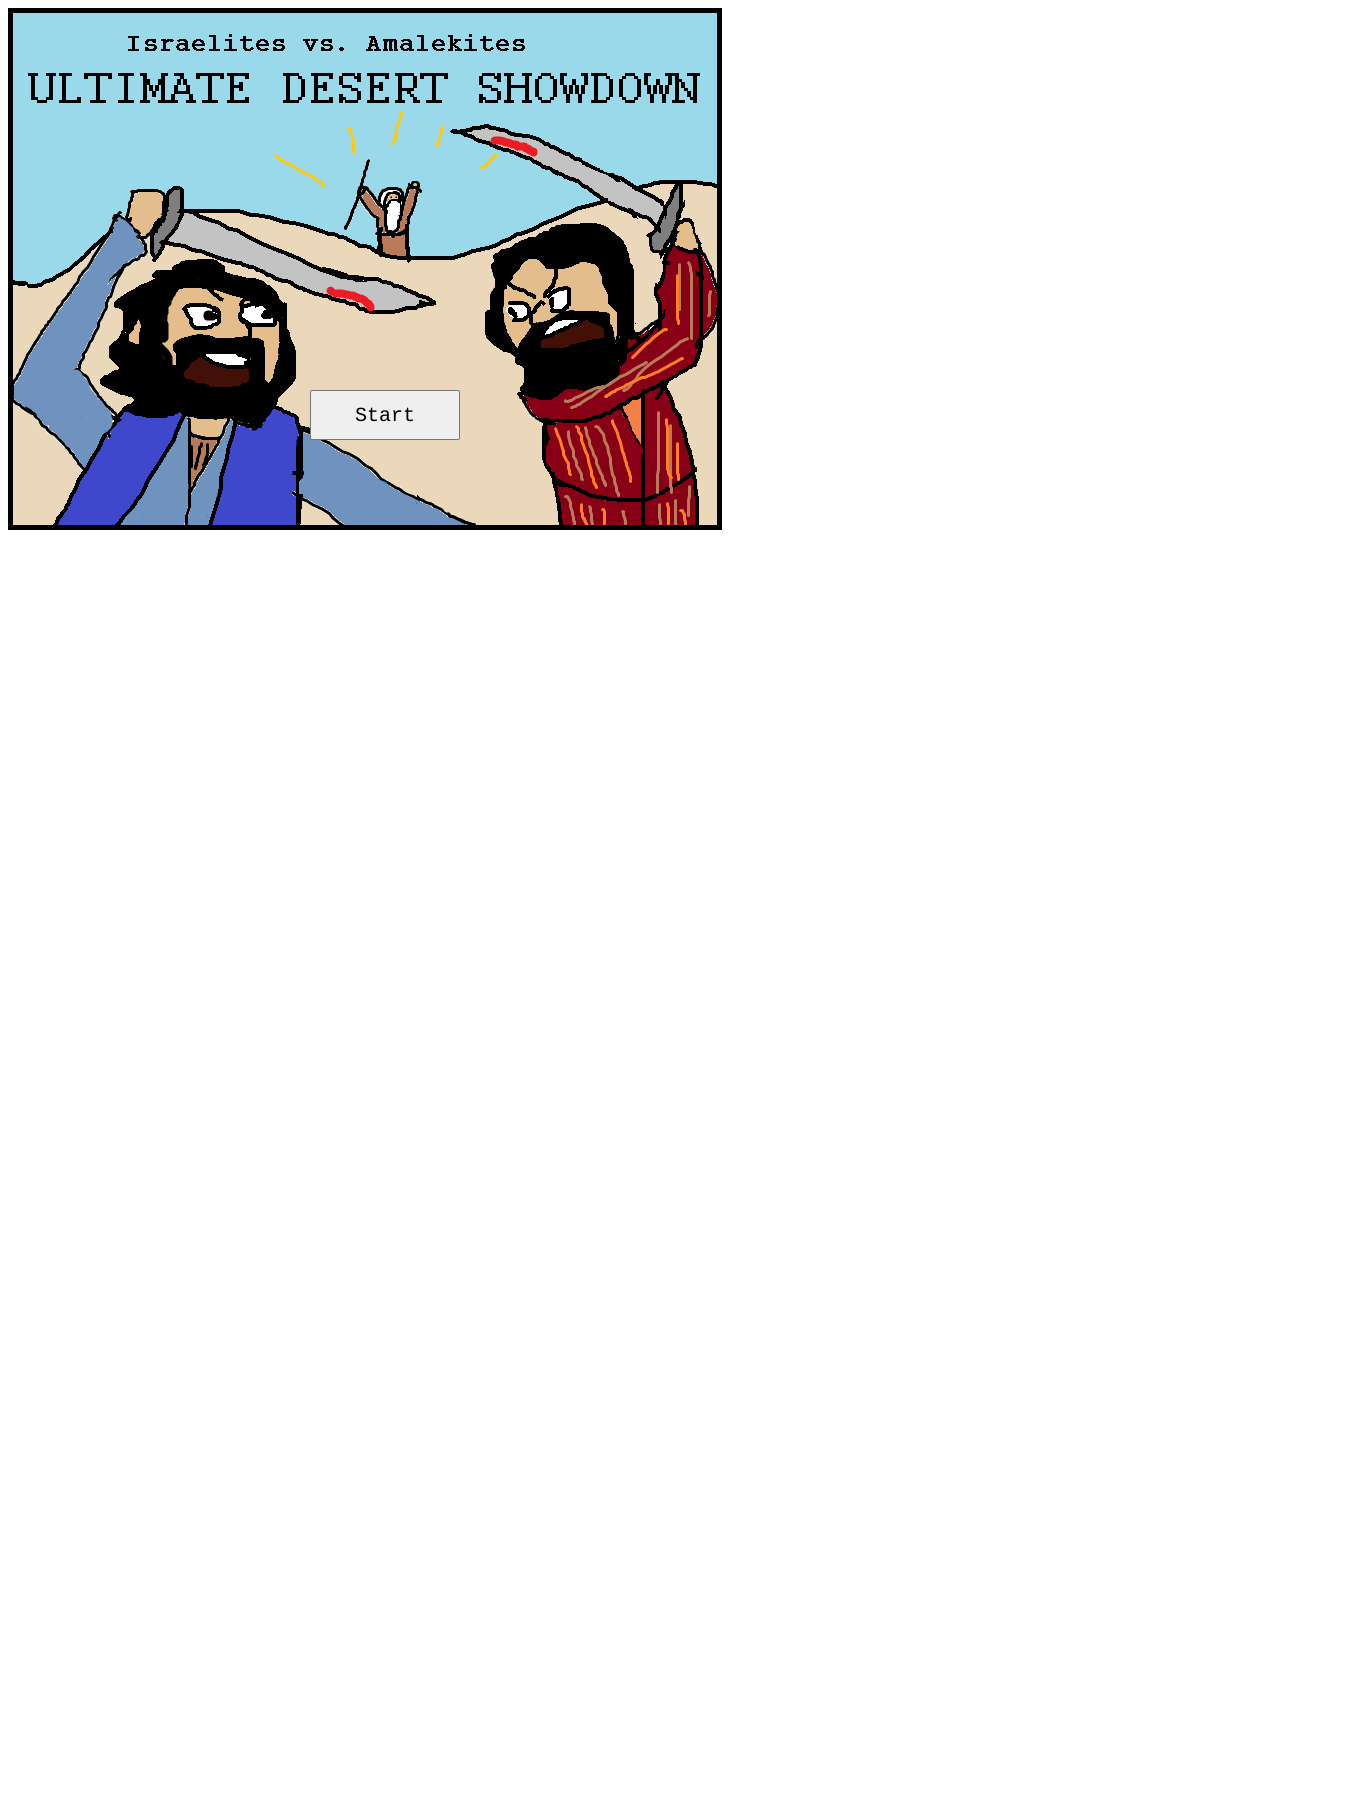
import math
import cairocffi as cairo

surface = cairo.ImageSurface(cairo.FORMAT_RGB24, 1348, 1793)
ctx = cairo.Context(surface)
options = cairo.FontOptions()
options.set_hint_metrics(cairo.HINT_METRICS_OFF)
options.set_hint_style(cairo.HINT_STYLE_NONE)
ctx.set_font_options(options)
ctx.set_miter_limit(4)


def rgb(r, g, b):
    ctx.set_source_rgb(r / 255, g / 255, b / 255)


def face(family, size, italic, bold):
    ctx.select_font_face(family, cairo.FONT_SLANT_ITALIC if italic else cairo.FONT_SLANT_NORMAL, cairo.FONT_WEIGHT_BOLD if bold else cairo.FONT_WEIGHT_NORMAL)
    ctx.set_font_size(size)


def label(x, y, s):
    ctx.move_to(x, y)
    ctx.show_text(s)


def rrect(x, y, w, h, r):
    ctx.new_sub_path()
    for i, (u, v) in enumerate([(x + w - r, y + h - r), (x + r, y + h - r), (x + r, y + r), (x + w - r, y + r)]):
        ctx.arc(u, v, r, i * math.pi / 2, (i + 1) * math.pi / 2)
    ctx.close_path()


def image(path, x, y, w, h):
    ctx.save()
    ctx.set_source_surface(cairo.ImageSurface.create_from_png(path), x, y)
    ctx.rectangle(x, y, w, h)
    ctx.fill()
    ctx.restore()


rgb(255, 255, 255)
ctx.paint()
ctx.rectangle(10.5, 10.5, 709, 517)
rgb(0, 0, 0)
ctx.set_line_width(5)
ctx.stroke()
image('image0.png', 13, 13, 704, 512)
rgb(239, 239, 239)
rrect(310.5, 390.5, 149, 49, 1.5)
ctx.fill_preserve()
rgb(118, 118, 118)
ctx.set_line_width(1)
ctx.stroke()
face('Liberation Mono', 20, 0, 0)
rgb(0, 0, 0)
label(355, 421, 'Start')
surface.write_to_png('render.png')
